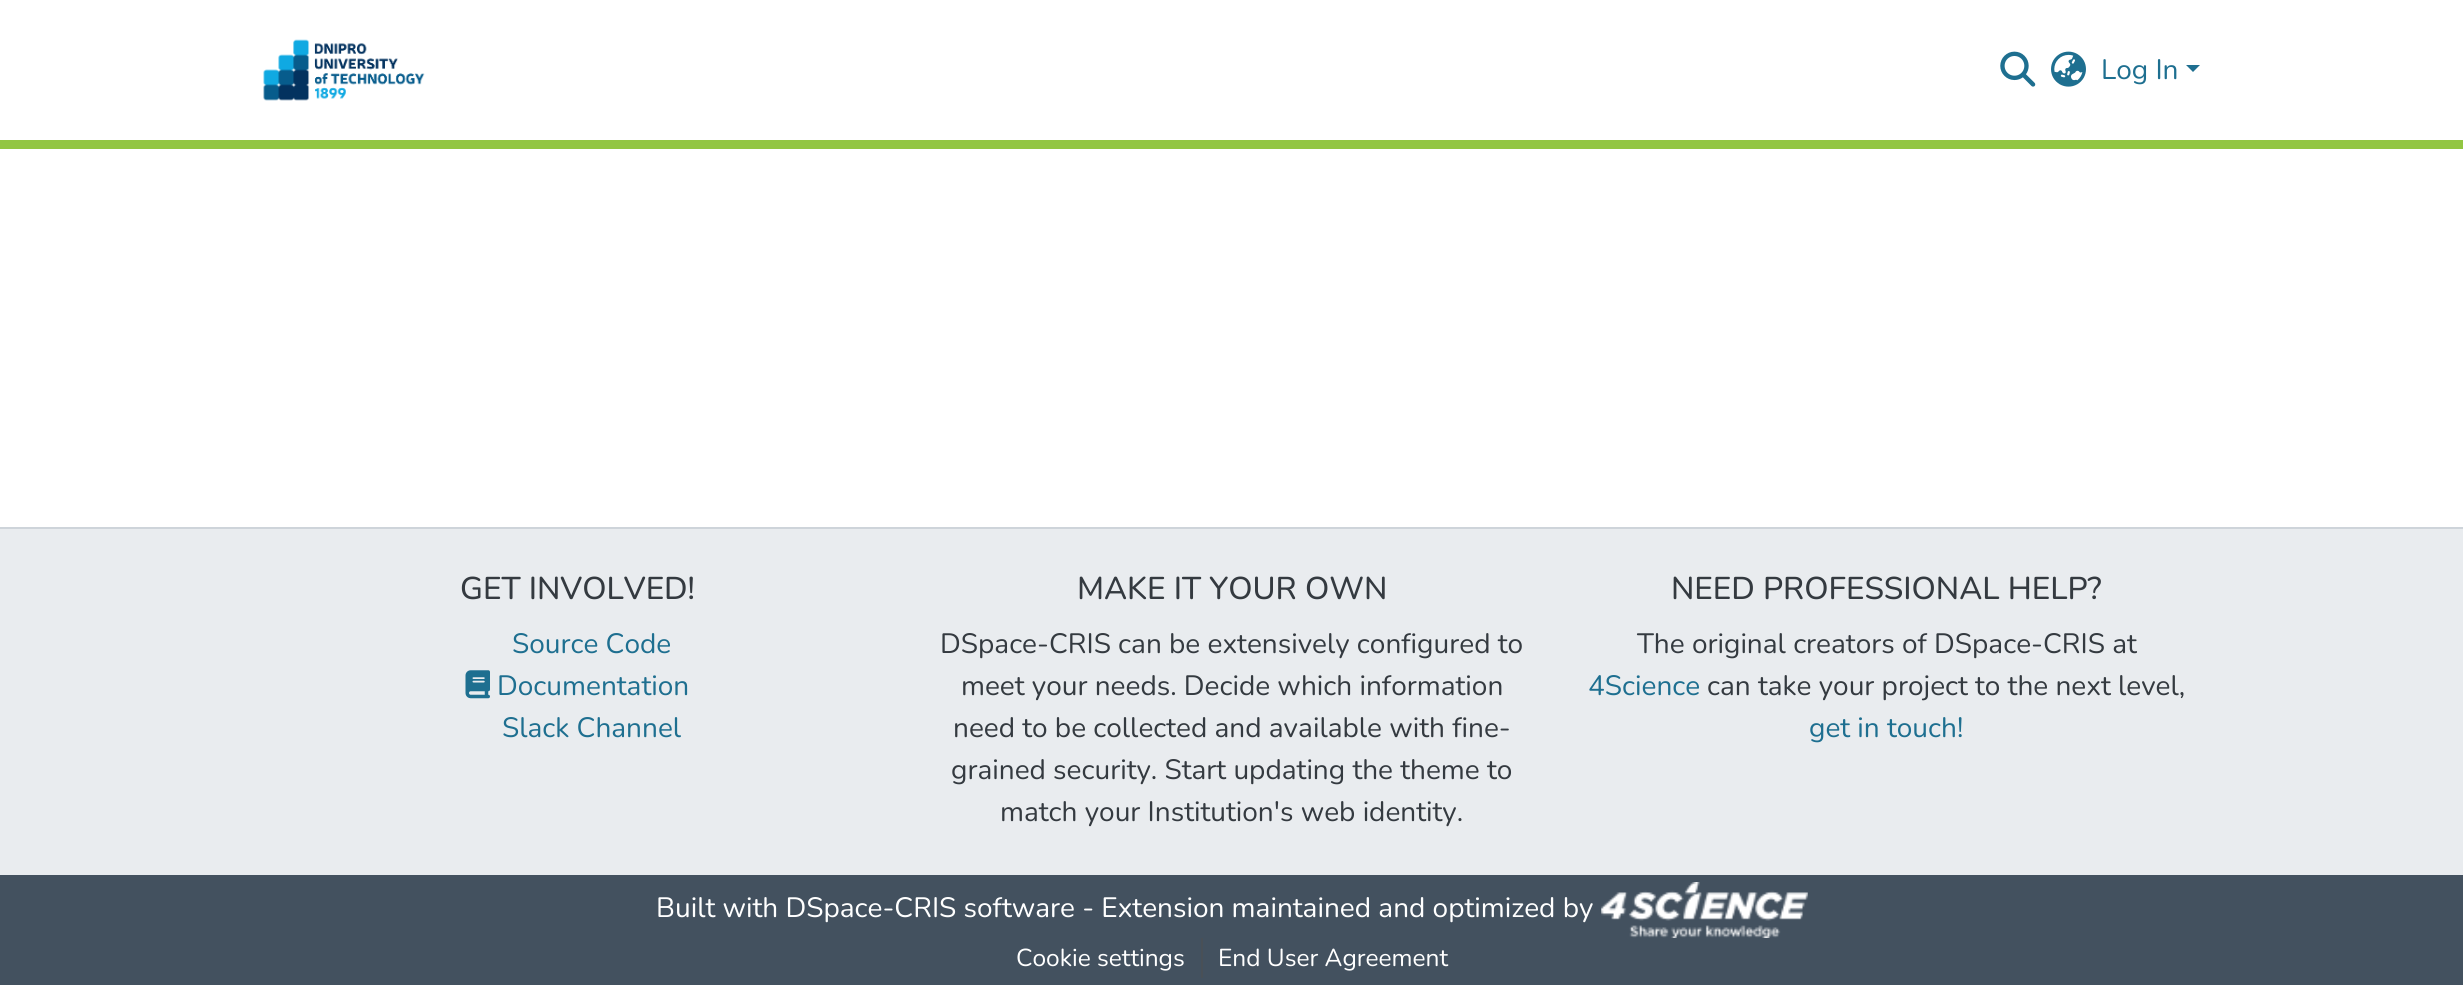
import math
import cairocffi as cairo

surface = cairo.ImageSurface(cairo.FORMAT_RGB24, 2463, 985)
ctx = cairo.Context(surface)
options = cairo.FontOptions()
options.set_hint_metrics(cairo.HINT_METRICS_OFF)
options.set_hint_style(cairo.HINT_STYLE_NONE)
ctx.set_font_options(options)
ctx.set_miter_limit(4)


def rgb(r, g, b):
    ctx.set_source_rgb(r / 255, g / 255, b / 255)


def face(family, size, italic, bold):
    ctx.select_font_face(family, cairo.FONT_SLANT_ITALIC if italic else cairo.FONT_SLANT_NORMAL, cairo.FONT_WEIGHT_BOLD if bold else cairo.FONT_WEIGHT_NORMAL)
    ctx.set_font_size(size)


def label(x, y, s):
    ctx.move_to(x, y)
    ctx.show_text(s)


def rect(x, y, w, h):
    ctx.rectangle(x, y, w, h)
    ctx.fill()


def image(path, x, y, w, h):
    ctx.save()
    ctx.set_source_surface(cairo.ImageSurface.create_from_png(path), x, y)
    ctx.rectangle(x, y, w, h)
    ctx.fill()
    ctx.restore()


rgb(255, 255, 255)
ctx.paint()
rgb(146, 198, 66)
rect(0, 140, 2463, 9)
image('image0.png', 263, 39, 162, 62)
image('image1.png', 2000, 51, 36, 36)
image('image2.png', 2051, 51, 35, 36)
face('Nunito', 28, 0, 0)
rgb(30, 111, 144)
label(2101, 79, 'Log In')
ctx.new_path()
ctx.move_to(2186, 65)
ctx.line_to(2200, 65)
ctx.line_to(2193, 72)
ctx.close_path()
ctx.fill()
rgb(67, 81, 95)
rect(0, 875, 2463, 110)
rgb(206, 212, 218)
rect(0, 527, 2463, 2)
rgb(233, 236, 239)
rect(0, 529, 2463, 346)
face('Nunito Medium', 31.5, 0, 0)
rgb(52, 58, 64)
label(460, 599, 'GET INVOLVED!')
face('Nunito', 28, 0, 0)
rgb(30, 111, 144)
label(512, 653, 'Source Code')
image('image3.png', 465, 670, 25, 29)
label(497, 695, 'Documentation')
label(502, 737, 'Slack Channel')
face('Nunito Medium', 31.5, 0, 0)
rgb(52, 58, 64)
label(1077, 599, 'MAKE IT YOUR OWN')
face('Nunito', 28, 0, 0)
label(940, 653, 'DSpace-CRIS can be extensively configured to')
label(961, 695, 'meet your needs. Decide which information')
label(953, 737, 'need to be collected and available with fine-')
label(951, 779, 'grained security. Start updating the theme to')
label(1000, 821, 'match your Institution\'s web identity.')
face('Nunito Medium', 31.5, 0, 0)
label(1671, 599, 'NEED PROFESSIONAL HELP?')
face('Nunito', 28, 0, 0)
label(1637, 653, 'The original creators of DSpace-CRIS at')
rgb(30, 111, 144)
label(1588, 695, '4Science')
rgb(52, 58, 64)
label(1707, 695, 'can take your project to the next level,')
rgb(30, 111, 144)
label(1809, 737, 'get in touch!')
rgb(255, 255, 255)
label(656, 917, 'Built with DSpace-CRIS software - Extension maintained and optimized by')
image('image4.png', 1601, 882, 207, 56)
face('Nunito', 24.5, 0, 0)
label(1016, 966, 'Cookie settings')
rgb(73, 80, 87)
rect(1201, 938, 2, 40)
rgb(255, 255, 255)
label(1218, 966, 'End User Agreement')
surface.write_to_png('render.png')
